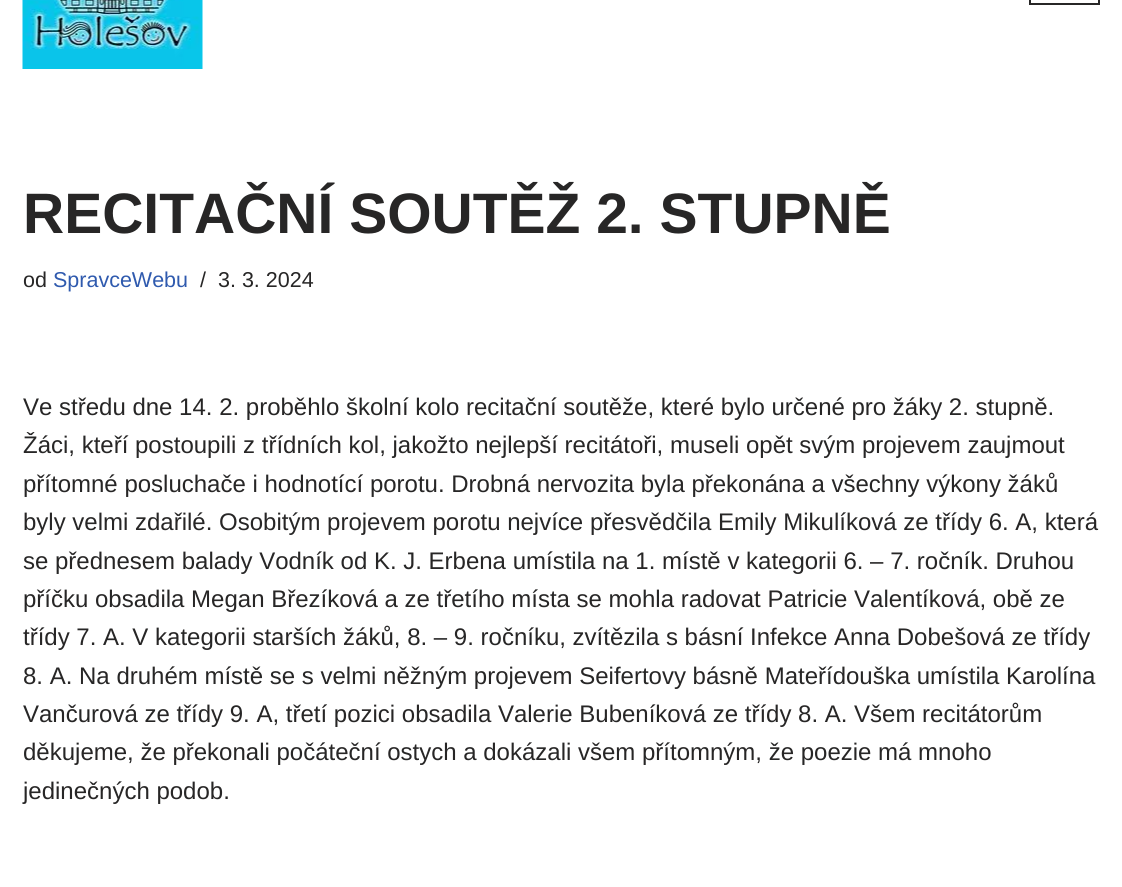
import math
import cairocffi as cairo

surface = cairo.ImageSurface(cairo.FORMAT_RGB24, 1122, 887)
ctx = cairo.Context(surface)
options = cairo.FontOptions()
options.set_hint_metrics(cairo.HINT_METRICS_OFF)
options.set_hint_style(cairo.HINT_STYLE_NONE)
ctx.set_font_options(options)
ctx.set_miter_limit(4)


def rgb(r, g, b):
    ctx.set_source_rgb(r / 255, g / 255, b / 255)


def face(family, size, italic, bold):
    ctx.select_font_face(family, cairo.FONT_SLANT_ITALIC if italic else cairo.FONT_SLANT_NORMAL, cairo.FONT_WEIGHT_BOLD if bold else cairo.FONT_WEIGHT_NORMAL)
    ctx.set_font_size(size)


def label(x, y, s):
    ctx.move_to(x, y)
    ctx.show_text(s)


def image(path, x, y, w, h):
    ctx.save()
    ctx.set_source_surface(cairo.ImageSurface.create_from_png(path), x, y)
    ctx.rectangle(x, y, w, h)
    ctx.fill()
    ctx.restore()


rgb(255, 255, 255)
ctx.paint()
image('image0.png', 22, 0, 181, 69)
ctx.rectangle(1030, -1, 69, 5)
rgb(39, 38, 38)
ctx.stroke()
face('Liberation Sans', 57, 0, 1)
label(23, 233, 'RECITAČNÍ SOUTĚŽ 2. STUPNĚ')
face('Liberation Sans', 21.5, 0, 0)
label(23, 287, 'od')
rgb(47, 90, 174)
label(53, 287, 'SpravceWebu')
rgb(39, 38, 38)
label(200, 287, '/')
label(218, 287, '3. 3. 2024')
face('Liberation Sans', 24, 0, 0)
label(23, 415, 'Ve středu dne 14. 2. proběhlo školní kolo recitační soutěže, které bylo určené pro žáky 2. stupně.')
label(23, 453, 'Žáci, kteří postoupili z třídních kol, jakožto nejlepší recitátoři, museli opět svým projevem zaujmout')
label(23, 492, 'přítomné posluchače i hodnotící porotu. Drobná nervozita byla překonána a všechny výkony žáků')
label(23, 530, 'byly velmi zdařilé. Osobitým projevem porotu nejvíce přesvědčila Emily Mikulíková ze třídy 6. A, která')
label(23, 569, 'se přednesem balady Vodník od K. J. Erbena umístila na 1. místě v kategorii 6. – 7. ročník. Druhou')
label(23, 607, 'příčku obsadila Megan Březíková a ze třetího místa se mohla radovat Patricie Valentíková, obě ze')
label(23, 645, 'třídy 7. A. V kategorii starších žáků, 8. – 9. ročníku, zvítězila s básní Infekce Anna Dobešová ze třídy')
label(23, 684, '8. A. Na druhém místě se s velmi něžným projevem Seifertovy básně Mateřídouška umístila Karolína')
label(23, 722, 'Vančurová ze třídy 9. A, třetí pozici obsadila Valerie Bubeníková ze třídy 8. A. Všem recitátorům')
label(23, 760, 'děkujeme, že překonali počáteční ostych a dokázali všem přítomným, že poezie má mnoho')
label(23, 799, 'jedinečných podob.')
surface.write_to_png('render.png')
